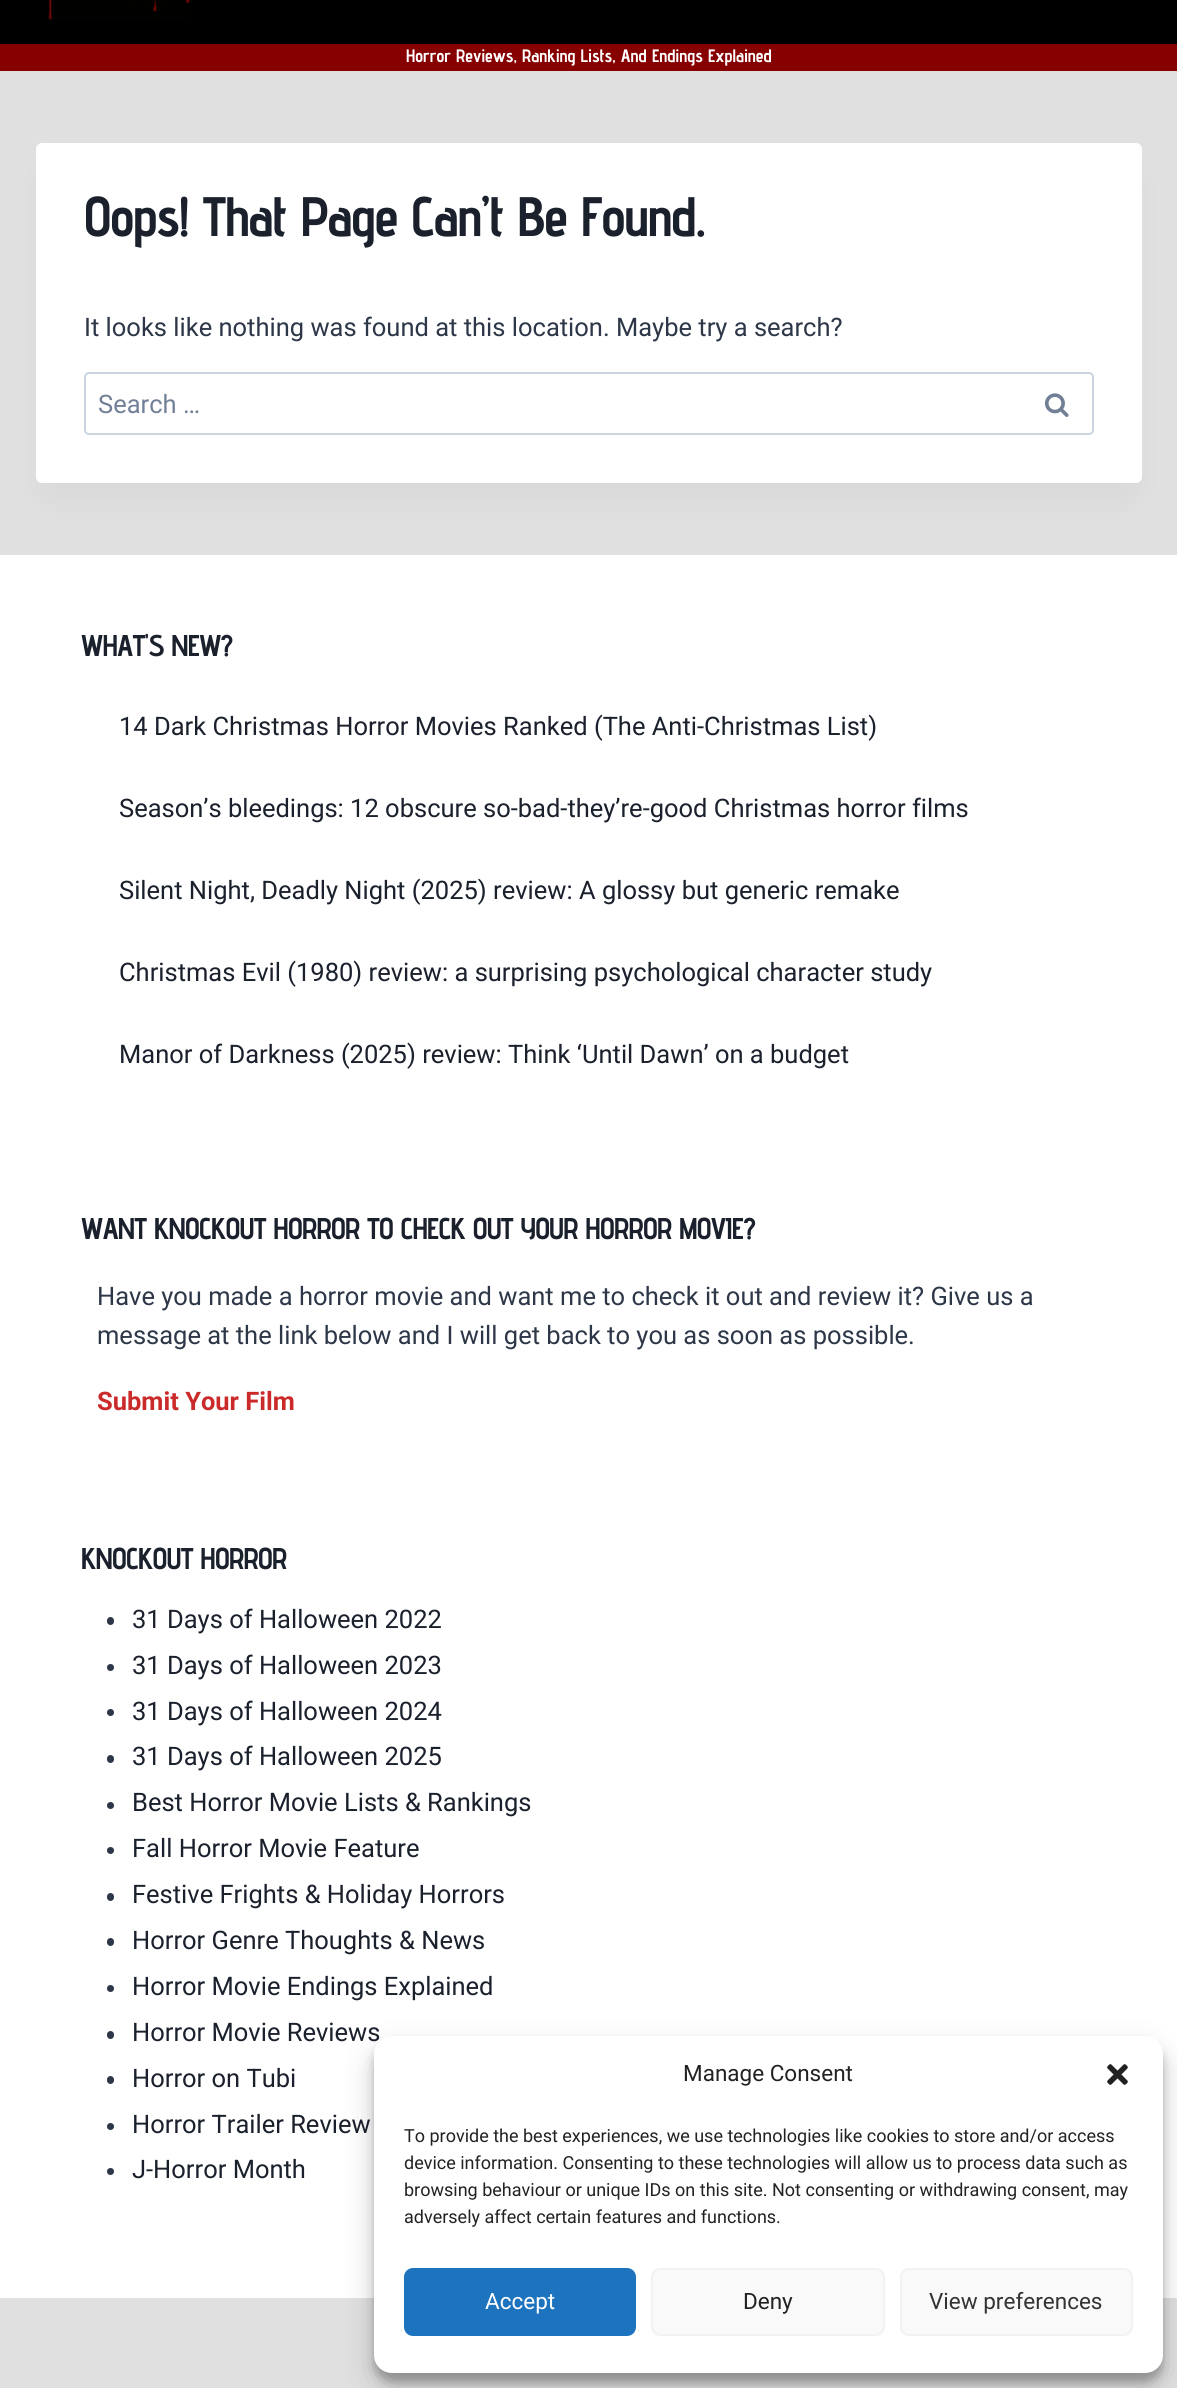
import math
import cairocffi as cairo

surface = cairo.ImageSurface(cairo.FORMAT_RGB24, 1177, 2388)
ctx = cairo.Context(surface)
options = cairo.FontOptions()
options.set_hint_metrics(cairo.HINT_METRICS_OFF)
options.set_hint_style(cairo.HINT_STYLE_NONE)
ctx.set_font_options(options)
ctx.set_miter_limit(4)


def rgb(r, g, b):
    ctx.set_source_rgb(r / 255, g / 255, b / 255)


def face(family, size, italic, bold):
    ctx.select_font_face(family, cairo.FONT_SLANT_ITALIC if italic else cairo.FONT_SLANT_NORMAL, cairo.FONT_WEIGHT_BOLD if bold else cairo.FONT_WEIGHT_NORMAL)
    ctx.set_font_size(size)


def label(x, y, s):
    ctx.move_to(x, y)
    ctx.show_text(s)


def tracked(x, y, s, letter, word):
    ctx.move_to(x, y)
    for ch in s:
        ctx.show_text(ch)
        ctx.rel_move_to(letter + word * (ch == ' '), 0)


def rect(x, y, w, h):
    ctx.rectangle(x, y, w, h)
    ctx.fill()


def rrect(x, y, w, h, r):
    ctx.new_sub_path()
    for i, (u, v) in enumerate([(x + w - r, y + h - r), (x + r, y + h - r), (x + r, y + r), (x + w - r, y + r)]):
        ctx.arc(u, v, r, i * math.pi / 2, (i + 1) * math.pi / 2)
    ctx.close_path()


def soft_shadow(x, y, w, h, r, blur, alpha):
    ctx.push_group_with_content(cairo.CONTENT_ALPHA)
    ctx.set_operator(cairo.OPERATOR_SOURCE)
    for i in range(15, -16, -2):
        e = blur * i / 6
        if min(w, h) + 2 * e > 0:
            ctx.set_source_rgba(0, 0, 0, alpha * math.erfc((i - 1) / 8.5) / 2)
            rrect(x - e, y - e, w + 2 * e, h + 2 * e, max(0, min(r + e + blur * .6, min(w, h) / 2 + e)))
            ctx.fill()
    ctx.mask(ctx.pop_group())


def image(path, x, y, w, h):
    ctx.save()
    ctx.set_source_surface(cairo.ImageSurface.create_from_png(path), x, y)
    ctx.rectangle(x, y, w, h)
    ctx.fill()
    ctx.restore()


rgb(224, 224, 224)
ctx.paint()
rgb(0, 0, 0)
rect(0, 0, 1177, 44)
image('image0.png', 48, 0, 142, 21)
rgb(135, 0, 0)
rect(0, 44, 1177, 27)
face('Advent Pro', 18, 0, 1)
rgb(255, 255, 255)
label(406, 62, 'Horror Reviews, Ranking Lists, And Endings Explained')
rgb(0, 0, 0)
soft_shadow(51, 180, 1076, 311, 0, 19, 0.05)
rgb(255, 255, 255)
rrect(36, 143, 1106, 340, 6)
ctx.fill()
face('Advent Pro', 55.5, 0, 1)
rgb(26, 32, 44)
tracked(84, 236, 'Oops! That Page Can’t Be Found.', -1.3, 0)
face('Roboto', 25.5, 0, 0)
rgb(45, 55, 72)
label(84, 336, 'It looks like nothing was found at this location. Maybe try a search?')
rrect(85, 373, 1008, 61, 4)
rgb(203, 213, 224)
ctx.stroke()
rgb(113, 128, 150)
label(98, 413, 'Search …')
image('image1.png', 1044, 393, 25, 24)
rgb(255, 255, 255)
rect(0, 555, 1177, 1743)
face('Advent Pro', 30, 0, 1)
rgb(26, 32, 44)
tracked(81, 656, 'WHAT\'S NEW?', -0.87, 0)
face('Roboto', 25.5, 0, 0)
label(119, 735, '14 Dark Christmas Horror Movies Ranked (The Anti-Christmas List)')
label(119, 817, 'Season’s bleedings: 12 obscure so-bad-they’re-good Christmas horror films')
label(119, 899, 'Silent Night, Deadly Night (2025) review: A glossy but generic remake')
label(119, 981, 'Christmas Evil (1980) review: a surprising psychological character study')
label(119, 1063, 'Manor of Darkness (2025) review: Think ‘Until Dawn’ on a budget')
face('Advent Pro', 30, 0, 1)
tracked(81, 1239, 'WANT KNOCKOUT HORROR TO CHECK OUT YOUR HORROR MOVIE?', -0.87, 0)
face('Roboto', 25.5, 0, 0)
rgb(45, 55, 72)
label(97, 1305, 'Have you made a horror movie and want me to check it out and review it? Give us a')
label(97, 1344, 'message at the link below and I will get back to you as soon as possible.')
face('Roboto', 25.5, 0, 1)
rgb(203, 42, 42)
label(97, 1410, 'Submit Your Film')
face('Advent Pro', 30, 0, 1)
rgb(26, 32, 44)
tracked(81, 1569, 'KNOCKOUT HORROR', -0.87, 0)
rgb(45, 55, 72)
rrect(107, 1617, 7, 8, 3.5)
ctx.fill()
face('Roboto', 25.5, 0, 0)
rgb(26, 32, 44)
label(132, 1628, '31 Days of Halloween 2022')
rgb(45, 55, 72)
ctx.new_path()
ctx.arc(110.5, 1667.5, 3.5, 0, 2 * math.pi)
ctx.fill()
rgb(26, 32, 44)
label(132, 1674, '31 Days of Halloween 2023')
rgb(45, 55, 72)
ctx.new_path()
ctx.arc(110.5, 1712.5, 3.5, 0, 2 * math.pi)
ctx.fill()
rgb(26, 32, 44)
label(132, 1720, '31 Days of Halloween 2024')
rgb(45, 55, 72)
rrect(107, 1755, 7, 8, 3.5)
ctx.fill()
rgb(26, 32, 44)
label(132, 1765, '31 Days of Halloween 2025')
rgb(45, 55, 72)
ctx.new_path()
ctx.arc(110.5, 1805.5, 3.5, 0, 2 * math.pi)
ctx.fill()
rgb(26, 32, 44)
label(132, 1811, 'Best Horror Movie Lists & Rankings')
rgb(45, 55, 72)
ctx.new_path()
ctx.arc(110.5, 1850.5, 3.5, 0, 2 * math.pi)
ctx.fill()
rgb(26, 32, 44)
label(132, 1857, 'Fall Horror Movie Feature')
rgb(45, 55, 72)
rrect(107, 1893, 7, 8, 3.5)
ctx.fill()
rgb(26, 32, 44)
label(132, 1903, 'Festive Frights & Holiday Horrors')
rgb(45, 55, 72)
rrect(107, 1938, 7, 8, 3.5)
ctx.fill()
rgb(26, 32, 44)
label(132, 1949, 'Horror Genre Thoughts & News')
rgb(45, 55, 72)
ctx.new_path()
ctx.arc(110.5, 1988.5, 3.5, 0, 2 * math.pi)
ctx.fill()
rgb(26, 32, 44)
label(132, 1995, 'Horror Movie Endings Explained')
rgb(45, 55, 72)
rrect(107, 2031, 7, 8, 3.5)
ctx.fill()
rgb(26, 32, 44)
label(132, 2041, 'Horror Movie Reviews')
rgb(45, 55, 72)
rrect(107, 2076, 7, 8, 3.5)
ctx.fill()
rgb(26, 32, 44)
label(132, 2087, 'Horror on Tubi')
rgb(45, 55, 72)
ctx.new_path()
ctx.arc(110.5, 2126.5, 3.5, 0, 2 * math.pi)
ctx.fill()
rgb(26, 32, 44)
label(132, 2133, 'Horror Trailer Review')
rgb(45, 55, 72)
ctx.new_path()
ctx.arc(110.5, 2171.5, 3.5, 0, 2 * math.pi)
ctx.fill()
rgb(26, 32, 44)
label(132, 2178, 'J-Horror Month')
rgb(0, 0, 0)
soft_shadow(374, 2045, 789, 337, 18, 4.5, 0.23)
soft_shadow(374, 2051, 789, 337, 18, 15, 0.19)
rgb(255, 255, 255)
rrect(374, 2036, 789, 337, 18)
ctx.fill()
face('Roboto', 22.5, 0, 0)
rgb(34, 34, 34)
label(683, 2081, 'Manage Consent')
image('image2.png', 1107, 2064, 21, 21)
face('Roboto', 18, 0, 0)
label(404, 2142, 'To provide the best experiences, we use technologies like cookies to store and/or access')
label(404, 2169, 'device information. Consenting to these technologies will allow us to process data such as')
label(404, 2196, 'browsing behaviour or unique IDs on this site. Not consenting or withdrawing consent, may')
label(404, 2223, 'adversely affect certain features and functions.')
rgb(30, 115, 190)
rrect(405, 2269, 230, 66, 8)
ctx.fill_preserve()
ctx.stroke()
face('Roboto', 22.5, 0, 0)
rgb(255, 255, 255)
label(485, 2309, 'Accept')
rgb(249, 249, 249)
rrect(652, 2269, 232, 66, 8)
ctx.fill_preserve()
rgb(242, 242, 242)
ctx.stroke()
rgb(34, 34, 34)
label(743, 2309, 'Deny')
rgb(249, 249, 249)
rrect(901, 2269, 231, 66, 8)
ctx.fill_preserve()
rgb(242, 242, 242)
ctx.stroke()
rgb(51, 51, 51)
label(929, 2309, 'View preferences')
surface.write_to_png('render.png')
